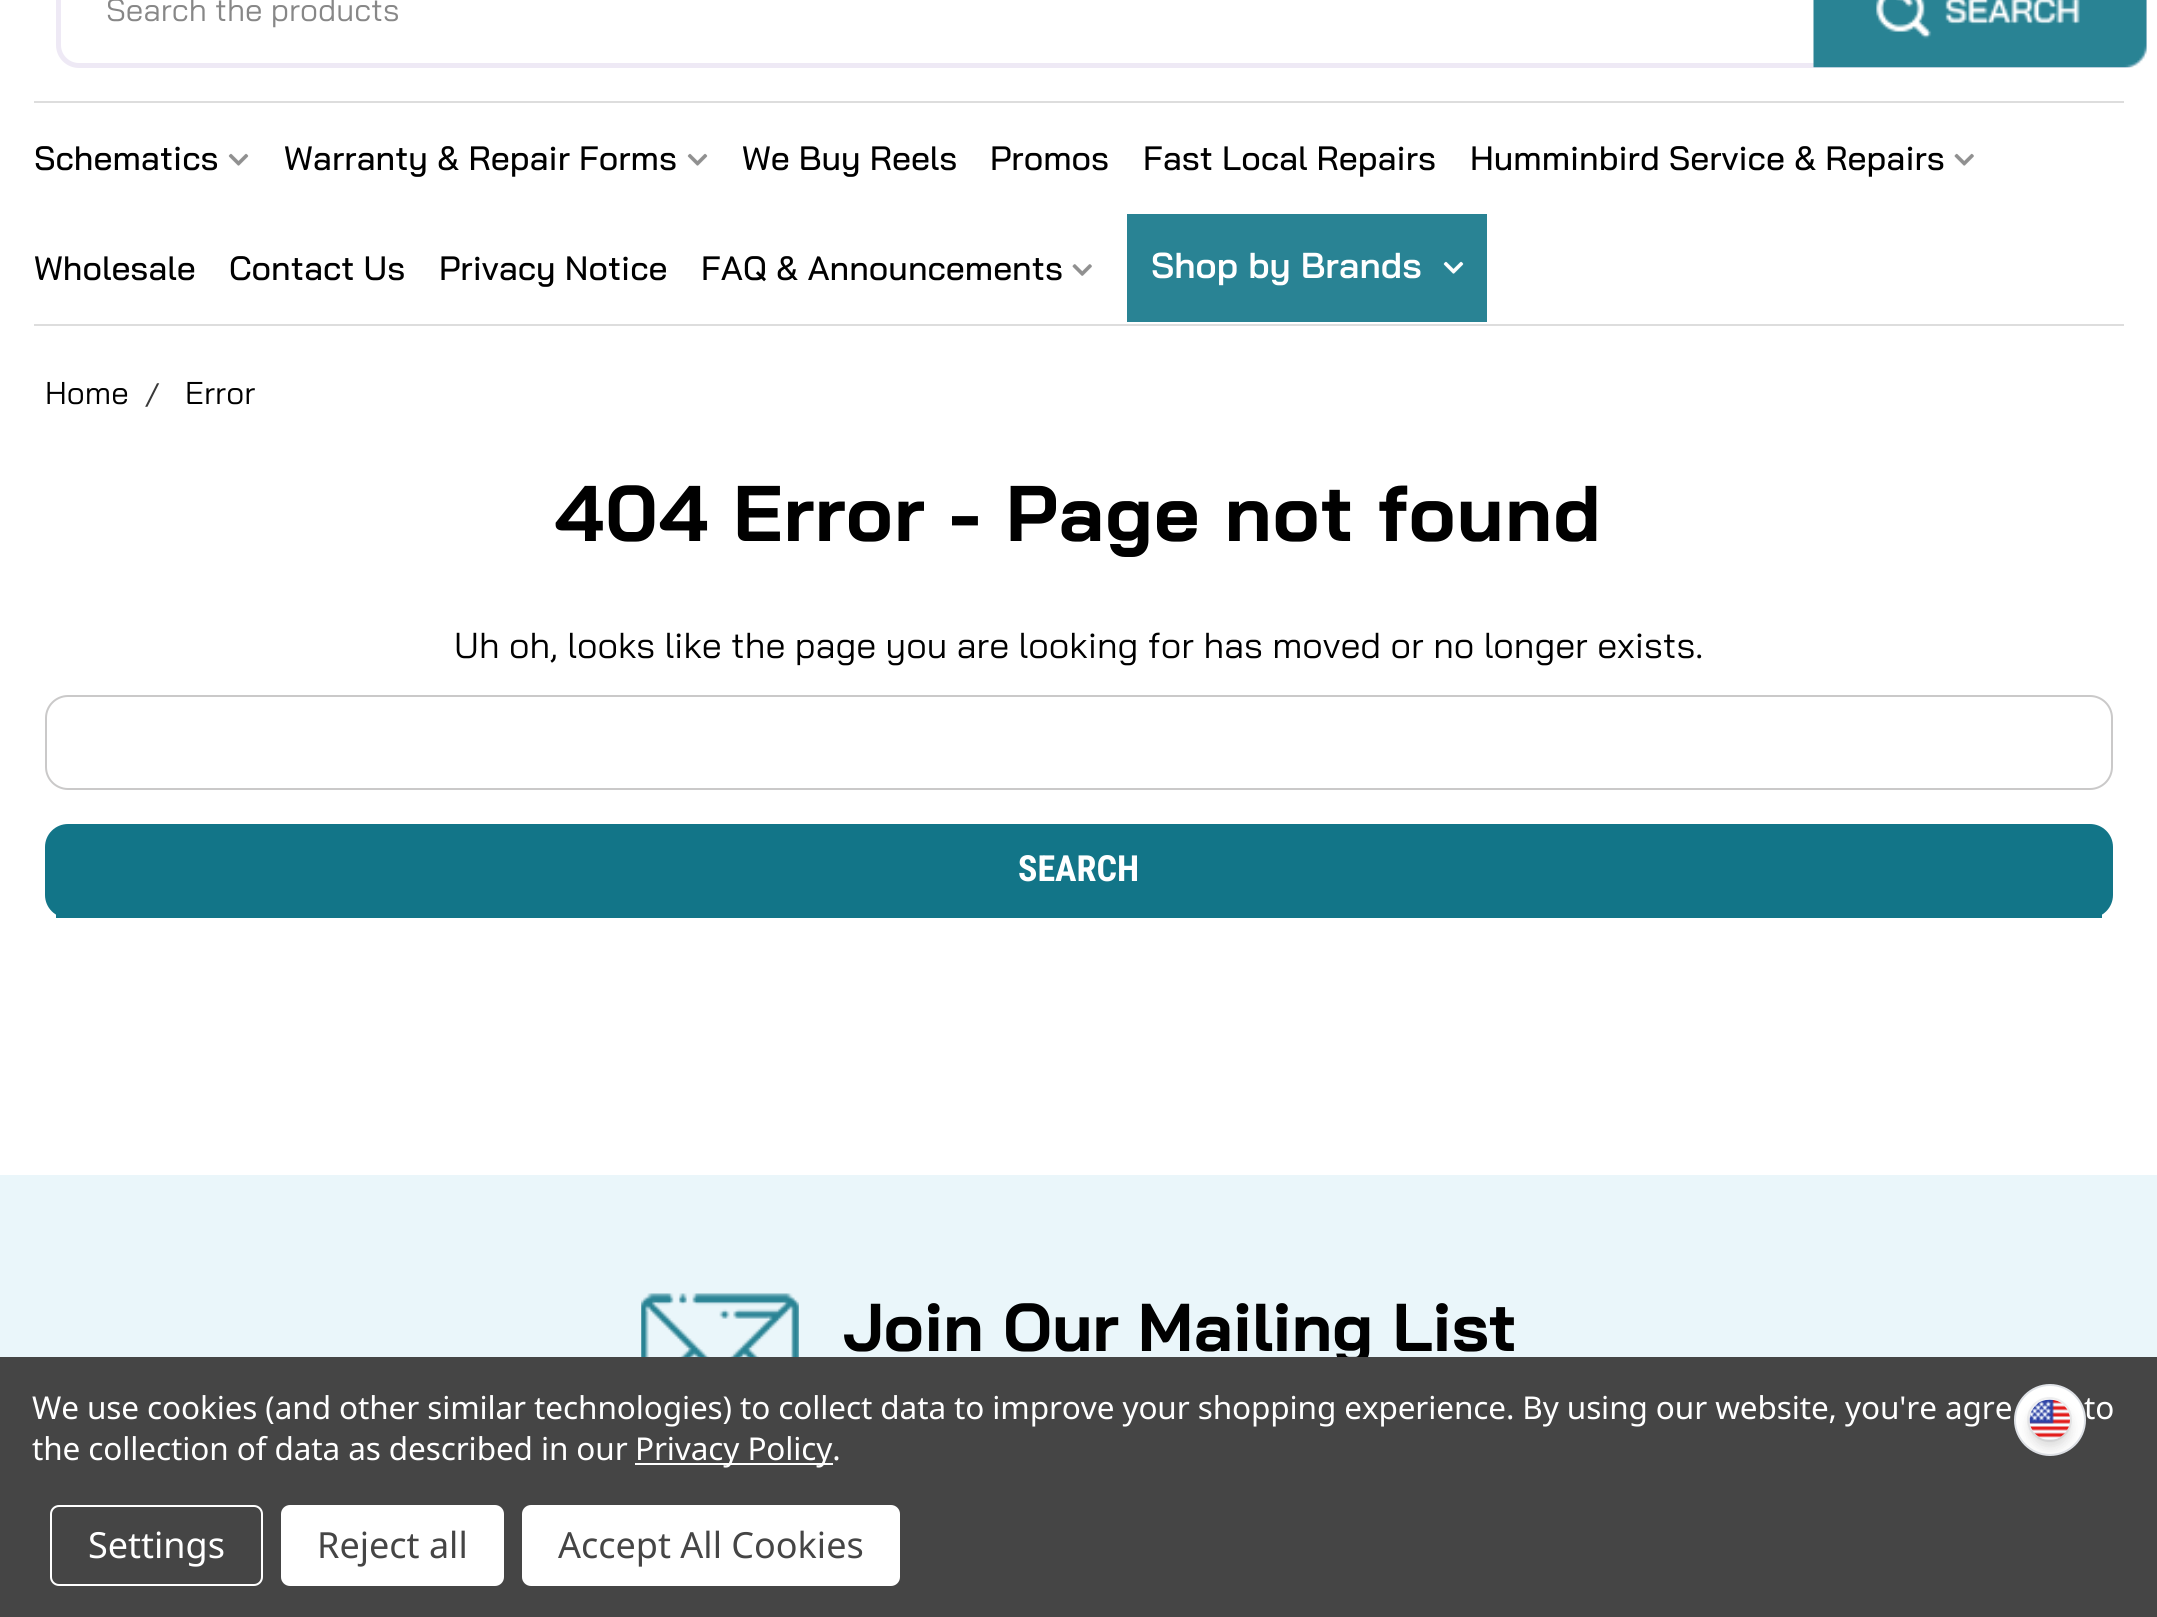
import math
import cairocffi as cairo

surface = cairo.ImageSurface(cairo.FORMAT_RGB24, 2157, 1617)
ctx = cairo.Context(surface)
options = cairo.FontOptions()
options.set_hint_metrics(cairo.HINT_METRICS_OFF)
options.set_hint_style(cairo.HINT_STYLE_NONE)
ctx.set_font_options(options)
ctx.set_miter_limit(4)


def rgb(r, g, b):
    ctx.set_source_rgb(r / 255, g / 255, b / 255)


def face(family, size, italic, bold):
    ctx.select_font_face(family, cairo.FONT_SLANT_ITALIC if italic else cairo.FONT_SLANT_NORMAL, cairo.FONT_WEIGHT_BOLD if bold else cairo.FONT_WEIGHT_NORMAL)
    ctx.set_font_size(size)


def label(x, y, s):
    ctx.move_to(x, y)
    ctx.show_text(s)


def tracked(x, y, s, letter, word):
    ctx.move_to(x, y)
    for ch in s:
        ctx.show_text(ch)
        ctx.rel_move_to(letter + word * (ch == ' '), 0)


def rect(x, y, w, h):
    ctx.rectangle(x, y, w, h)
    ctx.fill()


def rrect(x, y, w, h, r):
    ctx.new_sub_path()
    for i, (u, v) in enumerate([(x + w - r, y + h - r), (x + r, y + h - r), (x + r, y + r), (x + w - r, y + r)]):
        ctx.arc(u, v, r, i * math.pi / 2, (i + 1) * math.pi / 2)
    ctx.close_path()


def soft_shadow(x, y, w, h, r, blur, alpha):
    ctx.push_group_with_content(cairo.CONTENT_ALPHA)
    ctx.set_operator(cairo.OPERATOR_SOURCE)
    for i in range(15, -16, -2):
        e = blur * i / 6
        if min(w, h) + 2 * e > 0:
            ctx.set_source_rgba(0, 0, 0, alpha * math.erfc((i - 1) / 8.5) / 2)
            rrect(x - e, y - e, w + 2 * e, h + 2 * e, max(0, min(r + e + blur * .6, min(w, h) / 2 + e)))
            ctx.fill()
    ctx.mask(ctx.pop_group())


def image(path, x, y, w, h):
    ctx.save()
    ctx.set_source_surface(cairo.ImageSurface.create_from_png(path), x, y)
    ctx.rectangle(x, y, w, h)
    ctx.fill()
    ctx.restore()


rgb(255, 255, 255)
ctx.paint()
rrect(58.5, -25.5, 2086, 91, 20.5)
rgb(238, 233, 245)
ctx.set_line_width(5)
ctx.stroke()
face('Bai Jamjuree', 31.5, 0, 0)
rgb(135, 135, 135)
label(106, 21, 'Search the products')
image('image0.png', 1813, 0, 334, 68)
rgb(221, 221, 221)
rect(34, 101, 2090, 2)
rect(34, 324, 2090, 2)
face('Bai Jamjuree Medium', 33.75, 0, 0)
rgb(0, 0, 0)
label(34, 170, 'Schematics')
image('image1.png', 228, 153, 21, 13)
label(284, 170, 'Warranty & Repair Forms')
image('image1.png', 687, 153, 21, 13)
label(742, 170, 'We Buy Reels')
label(990, 170, 'Promos')
label(1143, 170, 'Fast Local Repairs')
label(1470, 170, 'Humminbird Service & Repairs')
image('image2.png', 1954, 153, 20, 13)
label(34, 280, 'Wholesale')
label(229, 280, 'Contact Us')
label(439, 280, 'Privacy Notice')
label(701, 280, 'FAQ & Announcements')
image('image3.png', 1072, 264, 20, 12)
rgb(41, 131, 148)
rect(1127, 214, 360, 108)
face('Bai Jamjuree SemiBold', 36, 0, 0)
rgb(255, 255, 255)
label(1151, 278, 'Shop by Brands')
image('image4.png', 1443, 261, 21, 13)
face('Bai Jamjuree', 31.5, 0, 0)
rgb(0, 0, 0)
label(45, 404, 'Home')
rgb(57, 57, 57)
label(144, 406, '/')
rgb(0, 0, 0)
label(185, 404, 'Error')
face('Bai Jamjuree', 78.75, 0, 1)
tracked(555, 541, '404 Error - Page not found', 1.1, 0)
face('Bai Jamjuree', 36, 0, 0)
label(454, 658, 'Uh oh, looks like the page you are looking for has moved or no longer exists.')
rrect(46, 696, 2066, 93, 22)
rgb(202, 201, 201)
ctx.set_line_width(2)
ctx.stroke()
rgb(18, 117, 136)
rrect(45, 824, 2068, 94, 23)
ctx.fill()
rect(56, 914, 2046, 4)
face('Roboto Condensed', 36, 0, 1)
rgb(255, 255, 255)
label(1018, 881, 'SEARCH')
rgb(234, 246, 250)
rect(0, 1175, 2157, 182)
image('image5.png', 641, 1293, 158, 64)
face('Bai Jamjuree', 67.5, 0, 1)
rgb(0, 0, 0)
label(843, 1351, 'Join Our Mailing List')
rgb(69, 69, 69)
rect(0, 1357, 2157, 260)
rgb(255, 255, 255)
ctx.new_path()
ctx.arc(2050, 1420, 35, 0, 2 * math.pi)
ctx.fill_preserve()
rgb(223, 226, 231)
ctx.stroke()
ctx.arc(2049.5, 1419.5, 21.5, 0, 2 * math.pi)
rgb(241, 241, 242)
ctx.stroke()
rgb(10, 10, 11)
soft_shadow(2030, 1409, 40, 40, 20, 7, 0.1)
soft_shadow(2030, 1404, 40, 41, 20, 4.5, 0.06)
image('image6.png', 2029, 1399, 41, 41)
face('Noto Sans', 31.5, 0, 0)
rgb(255, 255, 255)
tracked(32, 1419, 'We use cookies (and other similar technologies) to collect data to improve your shopping experience. By using our website, you\'re agre', -0.11, 0)
tracked(2084, 1419, 'to', -0.11, 0)
tracked(32, 1460, 'the collection of data as described in our', -0.11, 0)
rect(635, 1463, 198, 2)
tracked(635, 1460, 'Privacy Policy.', -0.11, 0)
rrect(51, 1506, 211, 79, 8)
ctx.stroke()
face('Noto Sans', 36, 0, 0)
label(88, 1558, 'Settings')
rrect(281, 1505, 223, 81, 9)
ctx.fill()
rgb(69, 69, 69)
label(317, 1558, 'Reject all')
rgb(255, 255, 255)
rrect(522, 1505, 378, 81, 9)
ctx.fill()
rgb(69, 69, 69)
label(558, 1558, 'Accept All Cookies')
surface.write_to_png('render.png')
